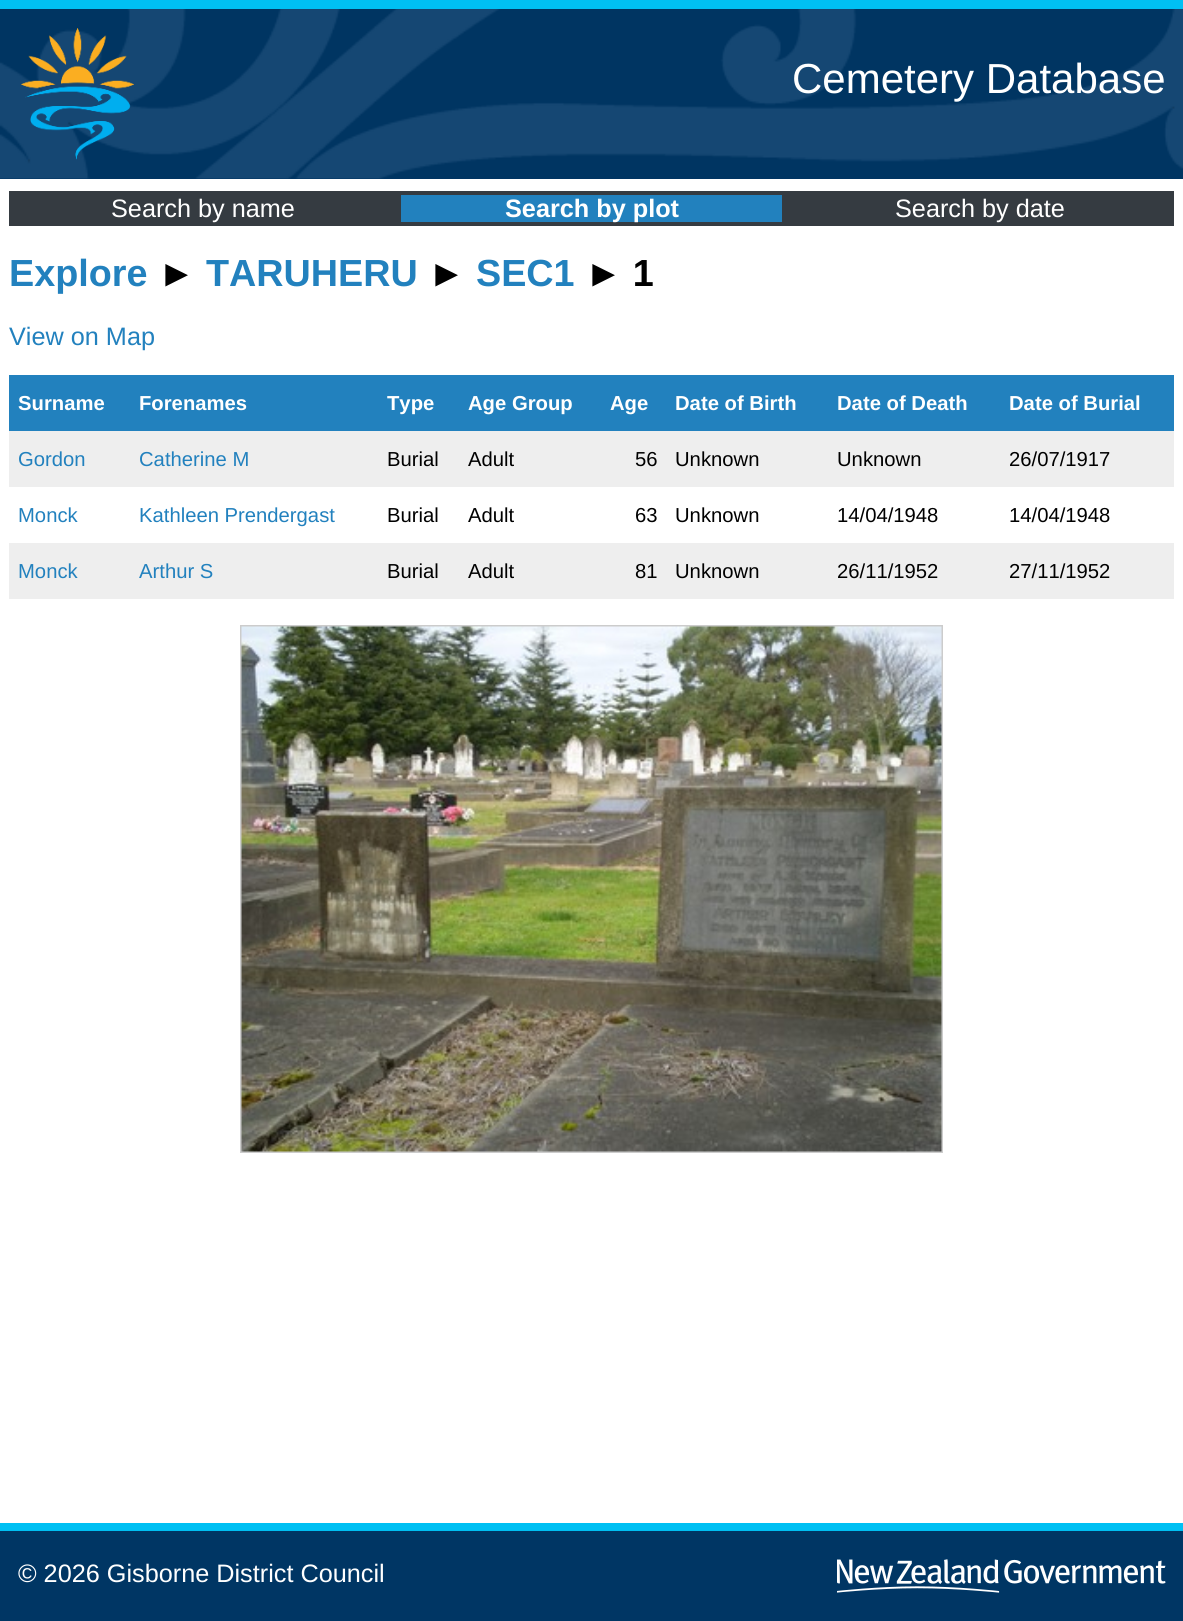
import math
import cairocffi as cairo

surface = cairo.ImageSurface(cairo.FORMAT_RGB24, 1183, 1621)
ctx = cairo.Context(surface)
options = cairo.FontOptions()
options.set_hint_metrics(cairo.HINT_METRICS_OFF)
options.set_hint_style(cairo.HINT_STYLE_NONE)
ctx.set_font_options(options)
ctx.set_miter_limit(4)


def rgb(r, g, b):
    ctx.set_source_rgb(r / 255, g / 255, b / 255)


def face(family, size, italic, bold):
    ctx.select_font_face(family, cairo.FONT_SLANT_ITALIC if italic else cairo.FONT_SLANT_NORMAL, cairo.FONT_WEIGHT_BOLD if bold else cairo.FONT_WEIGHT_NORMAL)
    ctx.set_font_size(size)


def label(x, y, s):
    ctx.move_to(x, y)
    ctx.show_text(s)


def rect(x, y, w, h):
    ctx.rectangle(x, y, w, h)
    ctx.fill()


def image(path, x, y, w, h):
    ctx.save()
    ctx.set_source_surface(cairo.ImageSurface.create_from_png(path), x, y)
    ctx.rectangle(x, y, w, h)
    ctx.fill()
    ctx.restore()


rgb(255, 255, 255)
ctx.paint()
rgb(0, 53, 98)
rect(0, 178, 1183, 1)
image('image0.png', 0, 9, 1183, 170)
rgb(0, 192, 243)
rect(0, 0, 1183, 9)
image('image1.png', 21, 28, 113, 132)
face('Liberation Sans', 42, 0, 0)
rgb(255, 255, 255)
label(792, 93, 'Cemetery Database')
rgb(53, 59, 65)
rect(9, 191, 1165, 35)
face('Liberation Sans', 25.25, 0, 0)
rgb(255, 255, 255)
label(111, 217, 'Search by name')
rgb(34, 129, 190)
rect(401, 195, 381, 27)
face('Liberation Sans', 25.25, 0, 1)
rgb(255, 255, 255)
label(505, 217, 'Search by plot')
face('Liberation Sans', 25.25, 0, 0)
label(895, 217, 'Search by date')
face('Liberation Sans', 37.75, 0, 1)
rgb(34, 129, 190)
label(9, 286, 'Explore')
rgb(0, 0, 0)
label(158, 286, '►')
rgb(34, 129, 190)
label(206, 286, 'TARUHERU')
rgb(0, 0, 0)
label(428, 286, '►')
rgb(34, 129, 190)
label(476, 286, 'SEC1')
rgb(0, 0, 0)
label(585, 286, '► 1')
face('Liberation Sans', 25.25, 0, 0)
rgb(34, 129, 190)
label(9, 345, 'View on Map')
rect(9, 375, 1165, 56)
face('Liberation Sans', 20.25, 0, 1)
rgb(255, 255, 255)
label(18, 410, 'Surname')
label(139, 410, 'Forenames')
label(387, 410, 'Type')
label(468, 410, 'Age Group')
label(610, 410, 'Age')
label(675, 410, 'Date of Birth')
label(837, 410, 'Date of Death')
label(1009, 410, 'Date of Burial')
rgb(238, 238, 238)
rect(9, 431, 1165, 56)
face('Liberation Sans', 20.25, 0, 0)
rgb(34, 129, 190)
label(18, 466, 'Gordon')
label(139, 466, 'Catherine M')
rgb(0, 0, 0)
label(387, 466, 'Burial')
label(468, 466, 'Adult')
label(635, 466, '56')
label(675, 466, 'Unknown')
label(837, 466, 'Unknown')
label(1009, 466, '26/07/1917')
rgb(34, 129, 190)
label(18, 522, 'Monck')
label(139, 522, 'Kathleen Prendergast')
rgb(0, 0, 0)
label(387, 522, 'Burial')
label(468, 522, 'Adult')
label(635, 522, '63')
label(675, 522, 'Unknown')
label(837, 522, '14/04/1948')
label(1009, 522, '14/04/1948')
rgb(238, 238, 238)
rect(9, 543, 1165, 56)
rgb(34, 129, 190)
label(18, 578, 'Monck')
label(139, 578, 'Arthur S')
rgb(0, 0, 0)
label(387, 578, 'Burial')
label(468, 578, 'Adult')
label(635, 578, '81')
label(675, 578, 'Unknown')
label(837, 578, '26/11/1952')
label(1009, 578, '27/11/1952')
ctx.rectangle(241, 626, 701, 526)
rgb(204, 204, 204)
ctx.stroke()
image('image2.png', 241, 626, 701, 526)
rgb(0, 54, 100)
rect(0, 1531, 1183, 90)
rgb(0, 192, 243)
rect(0, 1523, 1183, 8)
face('Liberation Sans', 25.25, 0, 0)
rgb(255, 255, 255)
label(18, 1582, '© 2026 Gisborne District Council')
image('image3.png', 837, 1559, 329, 34)
surface.write_to_png('render.png')
